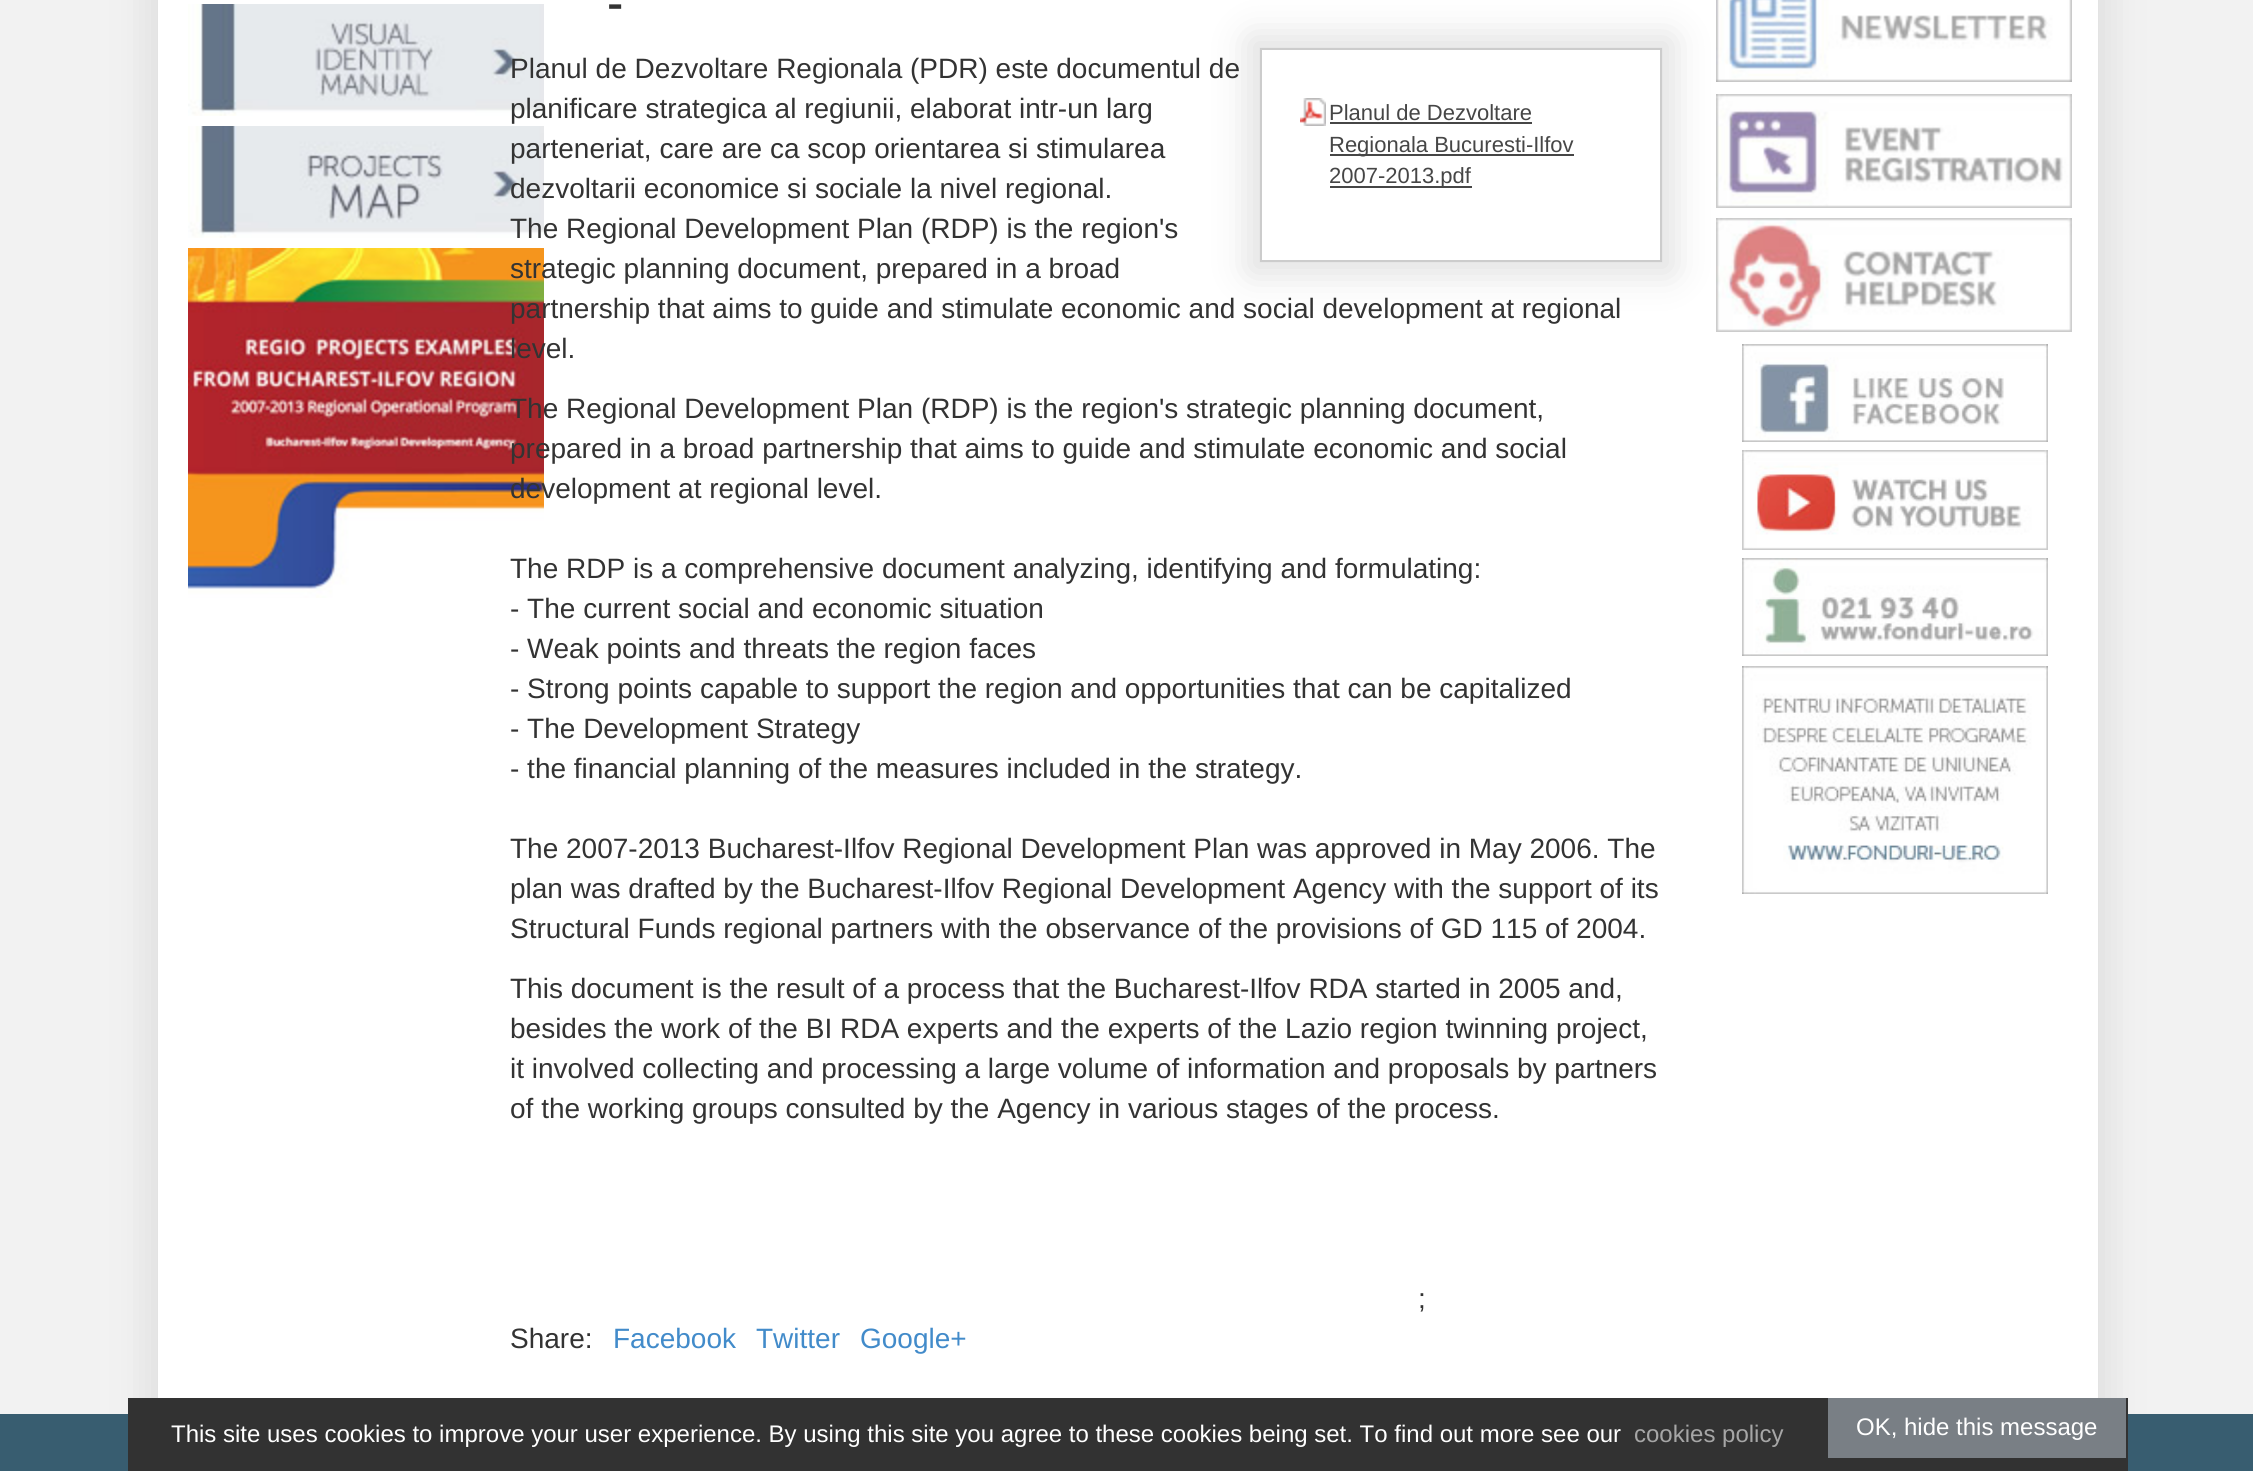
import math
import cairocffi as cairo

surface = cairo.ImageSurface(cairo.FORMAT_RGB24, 2253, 1471)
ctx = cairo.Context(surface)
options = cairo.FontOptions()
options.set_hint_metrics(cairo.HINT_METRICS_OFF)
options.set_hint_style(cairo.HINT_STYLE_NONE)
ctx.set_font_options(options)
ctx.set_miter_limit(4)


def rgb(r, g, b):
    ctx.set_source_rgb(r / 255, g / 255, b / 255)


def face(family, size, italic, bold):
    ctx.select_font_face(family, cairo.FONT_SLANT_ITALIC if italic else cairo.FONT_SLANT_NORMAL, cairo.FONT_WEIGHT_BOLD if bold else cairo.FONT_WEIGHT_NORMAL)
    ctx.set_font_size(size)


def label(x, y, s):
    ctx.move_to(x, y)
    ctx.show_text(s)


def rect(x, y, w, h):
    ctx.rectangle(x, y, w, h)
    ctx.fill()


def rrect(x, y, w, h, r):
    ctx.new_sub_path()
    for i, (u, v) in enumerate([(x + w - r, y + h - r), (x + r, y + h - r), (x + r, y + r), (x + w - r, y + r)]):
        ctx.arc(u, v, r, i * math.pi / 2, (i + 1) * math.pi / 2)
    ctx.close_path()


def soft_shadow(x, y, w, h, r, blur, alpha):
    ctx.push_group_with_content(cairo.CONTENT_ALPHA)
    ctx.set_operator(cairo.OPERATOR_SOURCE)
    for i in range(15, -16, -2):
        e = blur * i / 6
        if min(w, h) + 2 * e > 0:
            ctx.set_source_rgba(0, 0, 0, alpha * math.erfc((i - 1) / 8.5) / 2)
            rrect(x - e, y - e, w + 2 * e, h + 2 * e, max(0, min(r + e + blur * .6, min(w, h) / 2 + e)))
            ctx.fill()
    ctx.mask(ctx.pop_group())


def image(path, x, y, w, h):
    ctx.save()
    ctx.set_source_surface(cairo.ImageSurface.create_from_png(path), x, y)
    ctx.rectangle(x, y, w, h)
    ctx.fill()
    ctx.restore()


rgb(242, 242, 242)
ctx.paint()
rgb(221, 221, 221)
soft_shadow(148, -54, 1960, 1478, 0, 18, 1)
rgb(255, 255, 255)
rect(158, 0, 1940, 1398)
image('image0.png', 188, 4, 356, 112)
image('image1.png', 188, 126, 356, 112)
image('image2.png', 188, 248, 356, 350)
face('Museo Sans SemiBold', 40, 0, 0)
rgb(51, 51, 51)
label(606, 18, '-')
ctx.save()
ctx.set_fill_rule(cairo.FILL_RULE_EVEN_ODD)
ctx.new_path()
ctx.move_to(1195, 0)
ctx.line_to(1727, 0)
ctx.line_to(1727, 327)
ctx.line_to(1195, 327)
ctx.close_path()
ctx.move_to(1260, 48)
ctx.line_to(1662, 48)
ctx.line_to(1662, 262)
ctx.line_to(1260, 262)
ctx.close_path()
ctx.clip()
rgb(221, 221, 221)
soft_shadow(1250, 38, 422, 234, 0, 18, 1)
ctx.restore()
face('Liberation Sans', 28, 0, 0)
label(510, 78, 'Planul de Dezvoltare Regionala (PDR) este documentul de')
label(510, 118, 'planificare strategica al regiunii, elaborat intr-un larg')
label(510, 158, 'parteneriat, care are ca scop orientarea si stimularea')
label(510, 198, 'dezvoltarii economice si sociale la nivel regional.')
ctx.rectangle(1261, 49, 400, 212)
rgb(204, 204, 204)
ctx.stroke()
image('image3.png', 1300, 98, 26, 28)
face('Liberation Sans', 22, 0, 0)
rgb(70, 70, 70)
label(1329, 120, 'Planul de Dezvoltare')
rect(1330, 122, 202, 2)
rect(1330, 154, 244, 2)
label(1329, 152, 'Regionala Bucuresti-Ilfov')
rect(1330, 186, 142, 2)
label(1329, 183, '2007-2013.pdf')
face('Liberation Sans', 28, 0, 0)
rgb(51, 51, 51)
label(510, 238, 'The Regional Development Plan (RDP) is the region\'s')
label(510, 278, 'strategic planning document, prepared in a broad')
label(510, 318, 'partnership that aims to guide and stimulate economic and social development at regional')
label(510, 358, 'level.')
label(510, 418, 'The Regional Development Plan (RDP) is the region\'s strategic planning document,')
label(510, 458, 'prepared in a broad partnership that aims to guide and stimulate economic and social')
label(510, 498, 'development at regional level.')
label(510, 578, 'The RDP is a comprehensive document analyzing, identifying and formulating:')
label(510, 618, '- The current social and economic situation')
label(510, 658, '- Weak points and threats the region faces')
label(510, 698, '- Strong points capable to support the region and opportunities that can be capitalized')
label(510, 738, '- The Development Strategy')
label(510, 778, '- the financial planning of the measures included in the strategy.')
label(510, 858, 'The 2007-2013 Bucharest-Ilfov Regional Development Plan was approved in May 2006. The')
label(510, 898, 'plan was drafted by the Bucharest-Ilfov Regional Development Agency with the support of its')
label(510, 938, 'Structural Funds regional partners with the observance of the provisions of GD 115 of 2004.')
label(510, 998, 'This document is the result of a process that the Bucharest-Ilfov RDA started in 2005 and,')
label(510, 1038, 'besides the work of the BI RDA experts and the experts of the Lazio region twinning project,')
label(510, 1078, 'it involved collecting and processing a large volume of information and proposals by partners')
label(510, 1118, 'of the working groups consulted by the Agency in various stages of the process.')
label(1418, 1308, ';')
label(510, 1348, 'Share:')
rgb(66, 139, 202)
label(613, 1348, 'Facebook')
label(756, 1348, 'Twitter')
label(860, 1348, 'Google+')
image('image4.png', 1716, 0, 356, 82)
image('image5.png', 1716, 94, 356, 114)
image('image6.png', 1716, 218, 356, 114)
image('image7.png', 1742, 344, 306, 98)
image('image8.png', 1742, 450, 306, 100)
image('image9.png', 1742, 558, 306, 98)
image('image10.png', 1742, 666, 306, 228)
rgb(56, 93, 112)
rect(0, 1414, 2253, 57)
rgb(50, 50, 50)
rect(128, 1398, 2000, 73)
face('Liberation Sans', 24, 0, 0)
rgb(255, 255, 255)
label(171, 1442, 'This site uses cookies to improve your user experience. By using this site you agree to these cookies being set. To find out more see our')
rgb(166, 166, 166)
label(1634, 1442, 'cookies policy')
rgb(121, 127, 133)
rect(1828, 1398, 298, 60)
rgb(255, 255, 255)
label(1856, 1435, 'OK, hide this message')
surface.write_to_png('render.png')
